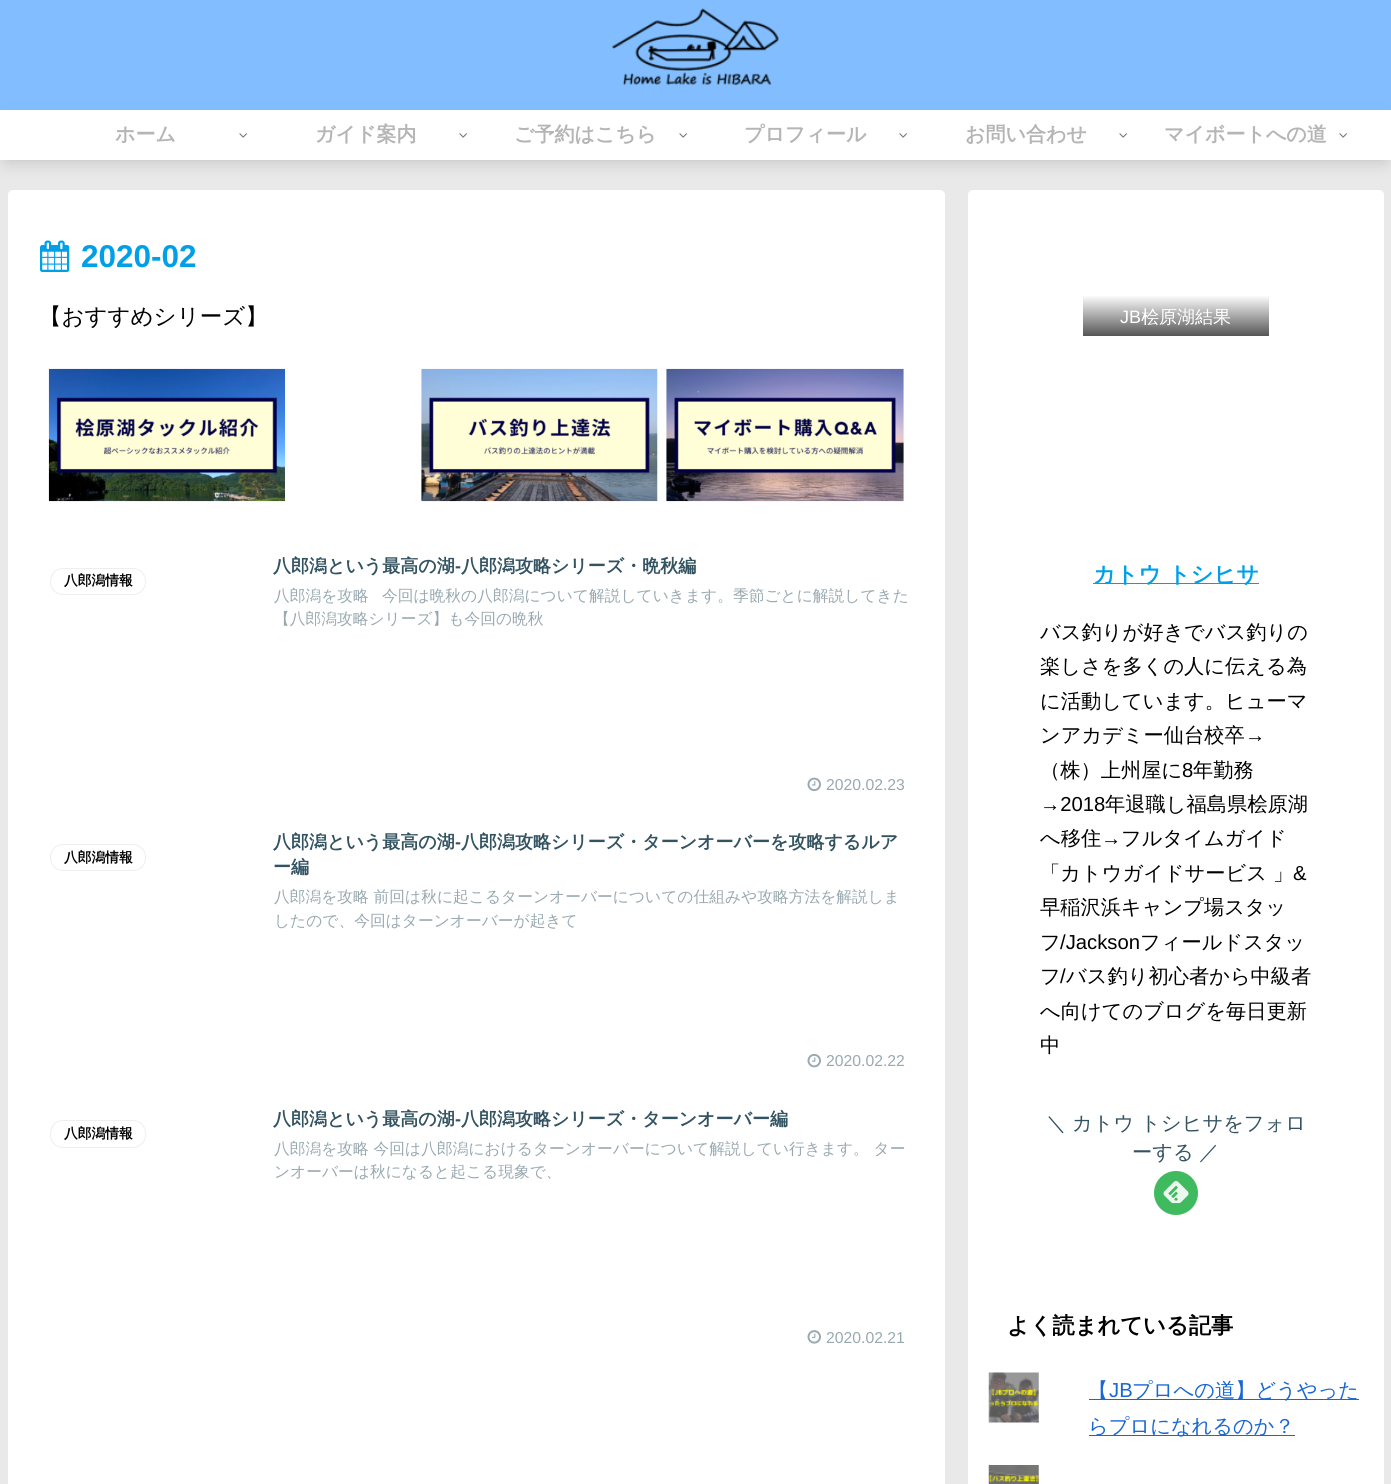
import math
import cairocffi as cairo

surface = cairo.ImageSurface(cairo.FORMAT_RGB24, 1391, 1484)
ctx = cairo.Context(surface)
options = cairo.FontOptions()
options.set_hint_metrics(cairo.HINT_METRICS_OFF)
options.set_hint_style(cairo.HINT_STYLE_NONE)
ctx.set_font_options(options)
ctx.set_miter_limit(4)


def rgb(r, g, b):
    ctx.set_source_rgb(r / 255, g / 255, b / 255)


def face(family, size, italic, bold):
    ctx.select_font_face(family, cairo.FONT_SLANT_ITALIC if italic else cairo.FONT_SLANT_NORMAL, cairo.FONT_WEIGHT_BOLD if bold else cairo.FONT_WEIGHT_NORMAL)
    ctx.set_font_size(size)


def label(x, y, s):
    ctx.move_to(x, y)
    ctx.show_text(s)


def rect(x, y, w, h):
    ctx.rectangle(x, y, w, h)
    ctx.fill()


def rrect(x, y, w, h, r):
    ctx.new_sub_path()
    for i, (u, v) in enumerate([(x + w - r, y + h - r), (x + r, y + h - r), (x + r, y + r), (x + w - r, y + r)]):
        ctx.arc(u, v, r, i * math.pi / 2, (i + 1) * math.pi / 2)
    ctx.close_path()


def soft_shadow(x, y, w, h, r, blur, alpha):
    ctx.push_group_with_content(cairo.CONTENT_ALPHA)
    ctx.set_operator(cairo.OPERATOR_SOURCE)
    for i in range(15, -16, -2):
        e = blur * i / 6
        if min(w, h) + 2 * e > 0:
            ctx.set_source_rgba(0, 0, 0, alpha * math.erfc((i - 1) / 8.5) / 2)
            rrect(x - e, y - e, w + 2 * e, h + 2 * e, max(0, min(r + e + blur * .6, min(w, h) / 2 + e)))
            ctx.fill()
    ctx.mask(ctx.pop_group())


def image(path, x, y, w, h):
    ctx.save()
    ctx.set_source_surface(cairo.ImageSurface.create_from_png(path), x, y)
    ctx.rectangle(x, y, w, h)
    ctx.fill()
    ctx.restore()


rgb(233, 233, 233)
ctx.paint()
rgb(130, 190, 255)
rect(0, 0, 1391, 110)
image('image0.png', 612, 8, 167, 78)
rgb(0, 0, 0)
soft_shadow(6, 123, 1379, 37, 0, 9.5, 0.2)
rgb(255, 255, 255)
rect(0, 110, 1391, 50)
face('WenQuanYi Zen Hei', 20, 0, 1)
rgb(181, 181, 181)
label(115, 141, 'ホーム')
image('image1.png', 239, 133, 8, 5)
label(315, 141, 'ガイド案内')
image('image1.png', 459, 133, 8, 5)
label(514, 141, 'ご予約はこちら')
image('image1.png', 679, 133, 8, 5)
label(744, 141, 'プロフィール')
image('image1.png', 899, 133, 8, 5)
label(965, 141, 'お問い合わせ')
image('image1.png', 1119, 133, 8, 5)
label(1164, 141, 'マイボートへの道')
image('image1.png', 1339, 133, 8, 5)
rgb(255, 255, 255)
rrect(8, 190, 937, 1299, 5)
ctx.fill()
image('image2.png', 40, 240, 30, 32)
face('Liberation Sans', 31.5, 0, 1)
rgb(0, 160, 233)
label(81, 267, '2020-02')
face('WenQuanYi Zen Hei Medium', 22.5, 0, 0)
rgb(0, 0, 0)
label(39, 324, '【おすすめシリーズ】')
image('image3.png', 48, 368, 237, 134)
image('image4.png', 421, 368, 237, 134)
image('image5.png', 666, 368, 238, 134)
rrect(50.5, 568.5, 95, 26, 12.5)
rgb(238, 238, 238)
ctx.set_line_width(1)
ctx.stroke()
face('WenQuanYi Zen Hei', 13.75, 0, 1)
rgb(0, 0, 0)
label(64, 585, '八郎潟情報')
face('WenQuanYi Zen Hei', 18, 0, 1)
rgb(51, 83, 97)
label(273, 572, '八郎潟という最高の湖')
face('Liberation Sans', 18, 0, 1)
label(455, 572, '-')
face('WenQuanYi Zen Hei', 18, 0, 1)
label(461, 572, '八郎潟攻略シリーズ・晩秋編')
face('WenQuanYi Zen Hei Medium', 15.75, 0, 0)
rgb(153, 169, 176)
label(274, 601, '八郎潟を攻略')
label(382, 601, '今回は晩秋の八郎潟について解説していきます。季節ごとに解説してきた')
label(274, 624, '【八郎潟攻略シリーズ】も今回の晩秋')
image('image6.png', 807, 777, 14, 15)
face('Liberation Sans', 15.75, 0, 0)
label(826, 790, '2020.02.23')
rrect(50.5, 844.5, 95, 26, 12.5)
rgb(238, 238, 238)
ctx.stroke()
face('WenQuanYi Zen Hei', 13.75, 0, 1)
rgb(0, 0, 0)
label(64, 862, '八郎潟情報')
face('WenQuanYi Zen Hei', 18, 0, 1)
rgb(51, 83, 97)
label(273, 848, '八郎潟という最高の湖')
face('Liberation Sans', 18, 0, 1)
label(455, 848, '-')
face('WenQuanYi Zen Hei', 18, 0, 1)
label(461, 848, '八郎潟攻略シリーズ・ターンオーバーを攻略するルア')
label(273, 873, 'ー編')
face('WenQuanYi Zen Hei Medium', 15.75, 0, 0)
rgb(153, 169, 176)
label(274, 902, '八郎潟を攻略 前回は秋に起こるターンオーバーについての仕組みや攻略方法を解説しま')
label(274, 926, 'したので、今回はターンオーバーが起きて')
image('image7.png', 807, 1053, 14, 15)
face('Liberation Sans', 15.75, 0, 0)
label(826, 1066, '2020.02.22')
rrect(50.5, 1120.5, 95, 27, 12.5)
rgb(238, 238, 238)
ctx.stroke()
face('WenQuanYi Zen Hei', 13.75, 0, 1)
rgb(0, 0, 0)
label(64, 1138, '八郎潟情報')
face('WenQuanYi Zen Hei', 18, 0, 1)
rgb(51, 83, 97)
label(273, 1125, '八郎潟という最高の湖')
face('Liberation Sans', 18, 0, 1)
label(455, 1125, '-')
face('WenQuanYi Zen Hei', 18, 0, 1)
label(461, 1125, '八郎潟攻略シリーズ・ターンオーバー編')
face('WenQuanYi Zen Hei Medium', 15.75, 0, 0)
rgb(153, 169, 176)
label(274, 1154, '八郎潟を攻略 今回は八郎潟におけるターンオーバーについて解説してい行きます。 ター')
label(274, 1177, 'ンオーバーは秋になると起こる現象で、')
image('image8.png', 807, 1330, 14, 14)
face('Liberation Sans', 15.75, 0, 0)
label(826, 1343, '2020.02.21')
rgb(255, 255, 255)
rrect(968, 190, 416, 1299, 5)
ctx.fill()
gradient = cairo.LinearGradient(1176, 295, 1176, 336)
gradient.add_color_stop_rgba(0, 1, 1, 1, 1)
gradient.add_color_stop_rgba(1, 0.333, 0.333, 0.333, 1)
ctx.set_source(gradient)
rect(1083, 296, 186, 40)
face('Liberation Sans', 18, 0, 0)
rgb(255, 255, 255)
label(1120, 323, 'JB')
face('WenQuanYi Zen Hei Medium', 18, 0, 0)
label(1141, 323, '桧原湖結果')
rgb(0, 160, 233)
rect(1093, 583, 166, 1)
face('WenQuanYi Zen Hei', 22.25, 0, 1)
label(1093, 582, 'カトウ トシヒサ')
face('WenQuanYi Zen Hei Medium', 20.25, 0, 0)
rgb(0, 0, 0)
label(1040, 639, 'バス釣りが好きでバス釣りの')
label(1040, 673, '楽しさを多くの人に伝える為')
label(1040, 708, 'に活動しています。ヒューマ')
label(1040, 742, 'ンアカデミー仙台校卒')
face('Liberation Sans', 20.25, 0, 0)
label(1245, 742, '→')
face('WenQuanYi Zen Hei Medium', 20.25, 0, 0)
label(1040, 777, '（株）上州屋に')
face('Liberation Sans', 20.25, 0, 0)
label(1182, 777, '8')
face('WenQuanYi Zen Hei Medium', 20.25, 0, 0)
label(1193, 777, '年勤務')
face('Liberation Sans', 20.25, 0, 0)
label(1040, 811, '→2018')
face('WenQuanYi Zen Hei Medium', 20.25, 0, 0)
label(1105, 811, '年退職し福島県桧原湖')
label(1040, 845, 'へ移住')
face('Liberation Sans', 20.25, 0, 0)
label(1101, 845, '→')
face('WenQuanYi Zen Hei Medium', 20.25, 0, 0)
label(1121, 845, 'フルタイムガイド')
label(1040, 880, '「カトウガイドサービス 」')
face('Liberation Sans', 20.25, 0, 0)
label(1293, 880, '&')
face('WenQuanYi Zen Hei Medium', 20.25, 0, 0)
label(1040, 914, '早稲沢浜キャンプ場スタッ')
label(1040, 949, 'フ')
face('Liberation Sans', 20.25, 0, 0)
label(1060, 949, '/Jackson')
face('WenQuanYi Zen Hei Medium', 20.25, 0, 0)
label(1140, 949, 'フィールドスタッ')
label(1040, 983, 'フ')
face('Liberation Sans', 20.25, 0, 0)
label(1060, 983, '/')
face('WenQuanYi Zen Hei Medium', 20.25, 0, 0)
label(1066, 983, 'バス釣り初心者から中級者')
label(1040, 1018, 'へ向けてのブログを毎日更新')
label(1040, 1052, '中')
rgb(51, 83, 97)
label(1046, 1130, '＼')
label(1072, 1130, 'カトウ トシヒサをフォロ')
label(1132, 1159, 'ーする')
label(1199, 1159, '／')
rgb(64, 186, 94)
ctx.new_path()
ctx.arc(1176, 1193, 22, 0, 2 * math.pi)
ctx.fill()
image('image9.png', 1163, 1181, 26, 23)
face('WenQuanYi Zen Hei', 22.25, 0, 1)
rgb(0, 0, 0)
label(1007, 1333, 'よく読まれている記事')
image('image10.png', 988, 1372, 51, 51)
rgb(25, 103, 210)
rect(1089, 1399, 270, 1)
face('WenQuanYi Zen Hei Medium', 20.25, 0, 0)
label(1088, 1397, '【')
face('Liberation Sans', 20.25, 0, 0)
label(1109, 1397, 'JB')
face('WenQuanYi Zen Hei Medium', 20.25, 0, 0)
label(1132, 1397, 'プロへの道】どうやった')
rect(1089, 1435, 206, 1)
label(1088, 1433, 'らプロになれるのか？')
image('image11.png', 988, 1465, 51, 19)
surface.write_to_png('render.png')
